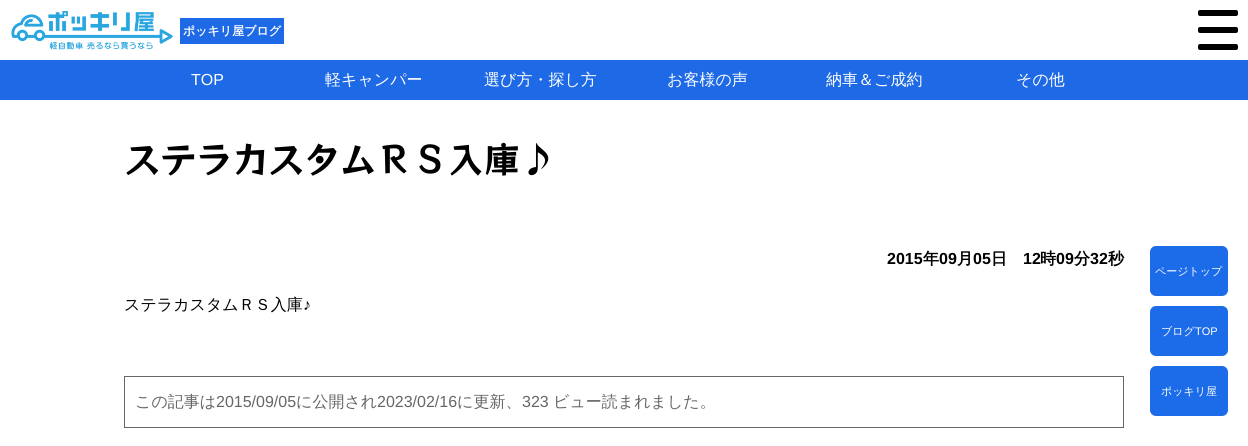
import math
import cairocffi as cairo

surface = cairo.ImageSurface(cairo.FORMAT_RGB24, 1248, 446)
ctx = cairo.Context(surface)
options = cairo.FontOptions()
options.set_hint_metrics(cairo.HINT_METRICS_OFF)
options.set_hint_style(cairo.HINT_STYLE_NONE)
ctx.set_font_options(options)
ctx.set_miter_limit(4)


def rgb(r, g, b):
    ctx.set_source_rgb(r / 255, g / 255, b / 255)


def face(family, size, italic, bold):
    ctx.select_font_face(family, cairo.FONT_SLANT_ITALIC if italic else cairo.FONT_SLANT_NORMAL, cairo.FONT_WEIGHT_BOLD if bold else cairo.FONT_WEIGHT_NORMAL)
    ctx.set_font_size(size)


def label(x, y, s):
    ctx.move_to(x, y)
    ctx.show_text(s)


def rect(x, y, w, h):
    ctx.rectangle(x, y, w, h)
    ctx.fill()


def rrect(x, y, w, h, r):
    ctx.new_sub_path()
    for i, (u, v) in enumerate([(x + w - r, y + h - r), (x + r, y + h - r), (x + r, y + r), (x + w - r, y + r)]):
        ctx.arc(u, v, r, i * math.pi / 2, (i + 1) * math.pi / 2)
    ctx.close_path()


def image(path, x, y, w, h):
    ctx.save()
    ctx.set_source_surface(cairo.ImageSurface.create_from_png(path), x, y)
    ctx.rectangle(x, y, w, h)
    ctx.fill()
    ctx.restore()


rgb(255, 255, 255)
ctx.paint()
image('image0.png', 11, 10, 162, 40)
rgb(30, 105, 230)
rect(180, 18, 104, 26)
face('WenQuanYi Zen Hei', 12, 0, 1)
rgb(255, 255, 255)
label(183, 35, 'ポッキリ屋ブログ')
rgb(0, 0, 0)
rrect(1198, 10, 40, 6, 2)
ctx.fill()
rrect(1198, 27, 40, 6, 2)
ctx.fill()
rrect(1198, 44, 40, 6, 2)
ctx.fill()
rgb(30, 105, 230)
rect(0, 60, 1248, 40)
face('Liberation Sans', 16, 0, 0)
rgb(255, 255, 255)
label(191, 85, 'TOP')
face('WenQuanYi Zen Hei Medium', 16, 0, 0)
label(325, 85, '軽キャンパー')
label(484, 85, '選び方・探し方')
label(667, 85, 'お客様の声')
label(826, 85, '納車＆ご成約')
label(1016, 85, 'その他')
face('RocknRoll One', 36, 0, 0)
rgb(0, 0, 0)
label(124, 173, 'ステラカスタムＲＳ入庫♪')
face('Liberation Sans', 16, 0, 1)
label(887, 264, '2015')
face('WenQuanYi Zen Hei', 16, 0, 1)
label(923, 264, '年')
face('Liberation Sans', 16, 0, 1)
label(939, 264, '09')
face('WenQuanYi Zen Hei', 16, 0, 1)
label(957, 264, '月')
face('Liberation Sans', 16, 0, 1)
label(973, 264, '05')
face('WenQuanYi Zen Hei', 16, 0, 1)
label(991, 264, '日')
face('Liberation Sans', 16, 0, 1)
label(1023, 264, '12')
face('WenQuanYi Zen Hei', 16, 0, 1)
label(1040, 264, '時')
face('Liberation Sans', 16, 0, 1)
label(1056, 264, '09')
face('WenQuanYi Zen Hei', 16, 0, 1)
label(1074, 264, '分')
face('Liberation Sans', 16, 0, 1)
label(1090, 264, '32')
face('WenQuanYi Zen Hei', 16, 0, 1)
label(1108, 264, '秒')
face('WenQuanYi Zen Hei Medium', 16, 0, 0)
label(124, 310, 'ステラカスタムＲＳ入庫')
face('Liberation Sans', 16, 0, 0)
label(303, 310, '♪')
ctx.rectangle(124.5, 376.5, 999, 51)
rgb(102, 102, 102)
ctx.set_line_width(1)
ctx.stroke()
face('WenQuanYi Zen Hei Medium', 16, 0, 0)
label(135, 407, 'この記事は')
face('Liberation Sans', 16, 0, 0)
label(216, 407, '2015/09/05')
face('WenQuanYi Zen Hei Medium', 16, 0, 0)
label(296, 407, 'に公開され')
face('Liberation Sans', 16, 0, 0)
label(377, 407, '2023/02/16')
face('WenQuanYi Zen Hei Medium', 16, 0, 0)
label(457, 407, 'に更新、')
face('Liberation Sans', 16, 0, 0)
label(522, 407, '323')
face('WenQuanYi Zen Hei Medium', 16, 0, 0)
label(553, 407, 'ビュー読まれました。')
rgb(28, 108, 233)
rrect(1150, 246, 78, 50, 6)
ctx.fill()
face('WenQuanYi Zen Hei Medium', 11, 0, 0)
rgb(255, 255, 255)
label(1155, 275, 'ページトップ')
rgb(28, 108, 233)
rrect(1150, 306, 78, 50, 6)
ctx.fill()
rgb(255, 255, 255)
label(1161, 335, 'ブログ')
face('Liberation Sans', 11, 0, 0)
label(1195, 335, 'TOP')
rgb(28, 108, 233)
rrect(1150, 366, 78, 50, 6)
ctx.fill()
face('WenQuanYi Zen Hei Medium', 11, 0, 0)
rgb(255, 255, 255)
label(1161, 395, 'ポッキリ屋')
surface.write_to_png('render.png')
